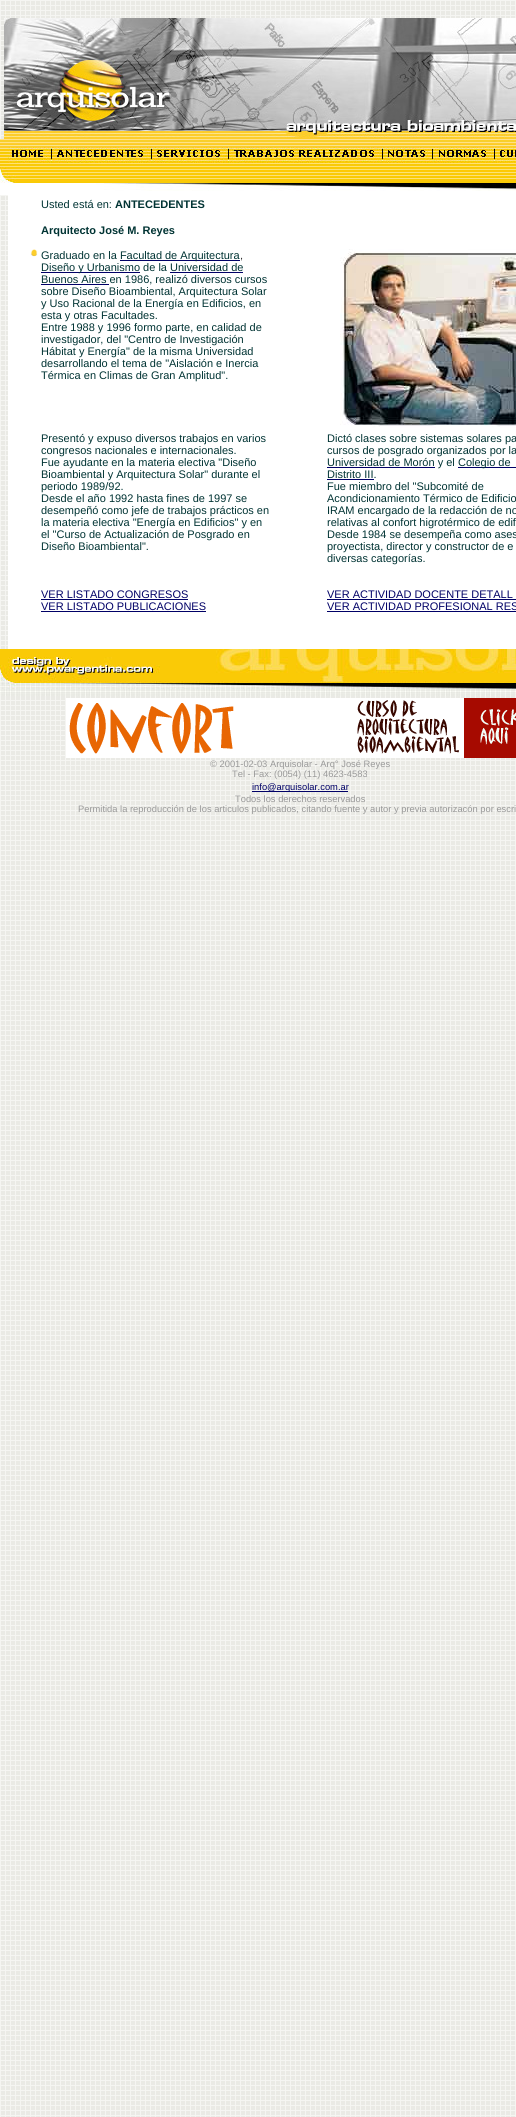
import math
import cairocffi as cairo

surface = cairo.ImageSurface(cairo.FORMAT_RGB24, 516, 2117)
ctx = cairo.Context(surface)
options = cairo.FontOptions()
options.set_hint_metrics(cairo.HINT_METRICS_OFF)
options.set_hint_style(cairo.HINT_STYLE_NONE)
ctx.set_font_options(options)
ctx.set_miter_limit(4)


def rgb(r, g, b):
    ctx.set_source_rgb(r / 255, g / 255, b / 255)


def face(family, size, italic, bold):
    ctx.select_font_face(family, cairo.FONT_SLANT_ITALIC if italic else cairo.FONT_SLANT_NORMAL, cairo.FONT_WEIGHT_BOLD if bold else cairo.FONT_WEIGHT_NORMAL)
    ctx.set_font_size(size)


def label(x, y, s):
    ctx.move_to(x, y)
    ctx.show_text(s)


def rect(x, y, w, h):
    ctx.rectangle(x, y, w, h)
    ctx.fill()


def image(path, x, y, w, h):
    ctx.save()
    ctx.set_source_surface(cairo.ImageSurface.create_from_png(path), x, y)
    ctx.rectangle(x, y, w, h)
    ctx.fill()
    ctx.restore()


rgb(255, 255, 255)
ctx.paint()
image('image0.png', 0, 0, 516, 2117)
image('image1.png', 4, 18, 512, 121)
image('image2.png', 0, 139, 516, 28)
image('image3.png', 0, 167, 516, 28)
rgb(255, 255, 255)
rect(8, 195, 508, 454)
face('Liberation Sans', 11, 0, 0)
rgb(0, 51, 51)
label(41, 208, 'Usted está en:')
face('Liberation Sans', 11, 0, 1)
label(115, 208, 'ANTECEDENTES')
label(41, 234, 'Arquitecto José M. Reyes')
image('image4.png', 30, 249, 8, 8)
face('Liberation Sans', 11, 0, 0)
label(41, 259, 'Graduado en la Facultad')
rgb(0, 0, 102)
rect(120, 260, 120, 1)
rgb(0, 51, 51)
label(165, 259, 'de Arquitectura')
rgb(51, 51, 51)
label(240, 259, ',')
rgb(0, 0, 102)
rect(41, 272, 99, 1)
rgb(0, 51, 51)
label(41, 271, 'Diseño y Urbanismo de la Universidad de')
rgb(0, 0, 102)
rect(170, 272, 73, 1)
rect(41, 284, 68, 1)
rgb(0, 51, 51)
label(41, 283, 'Buenos Aires en 1986, realizó diversos cursos')
label(41, 295, 'sobre Diseño Bioambiental, Arquitectura Solar')
label(41, 307, 'y Uso Racional de la Energía en Edificios, en')
label(41, 319, 'esta y otras Facultades.')
label(41, 331, 'Entre 1988 y 1996 formo parte, en calidad de')
label(41, 343, 'investigador, del "Centro de Investigación')
label(41, 355, 'Hábitat y Energía" de la misma Universidad')
label(41, 367, 'desarrollando el tema de "Aislación e Inercia')
label(41, 379, 'Térmica en Climas de Gran Amplitud".')
image('image5.png', 340, 249, 176, 179)
label(41, 442, 'Presentó y expuso diversos trabajos en varios')
label(41, 454, 'congresos nacionales e internacionales.')
label(41, 466, 'Fue ayudante en la materia electiva "Diseño')
label(41, 478, 'Bioambiental y Arquitectura Solar" durante el')
label(41, 490, 'periodo 1989/92.')
label(41, 502, 'Desde el año 1992 hasta fines de 1997 se')
label(41, 514, 'desempeñó como jefe de trabajos prácticos en')
label(41, 526, 'la materia electiva "Energía en Edificios" y en')
label(41, 538, 'el "Curso de Actualización de Posgrado en')
label(41, 550, 'Diseño Bioambiental".')
label(327, 442, 'Dictó clases sobre sistemas solares pa')
label(327, 454, 'cursos de posgrado organizados por la')
rgb(0, 0, 102)
rect(327, 467, 108, 1)
rgb(0, 51, 51)
label(327, 466, 'Universidad de Morón y el')
rgb(0, 0, 102)
rect(458, 467, 58, 1)
rgb(0, 51, 51)
label(458, 466, 'Colegio de')
label(327, 478, 'Distrito III.')
rgb(0, 0, 102)
rect(327, 479, 47, 1)
rgb(0, 51, 51)
label(327, 490, 'Fue miembro del "Subcomité de')
label(327, 502, 'Acondicionamiento Térmico de Edificio')
label(327, 514, 'IRAM encargado de la redacción de no')
label(327, 526, 'relativas al confort higrotérmico de edif')
label(327, 538, 'Desde 1984 se desempeña como ases')
label(327, 550, 'proyectista, director y constructor de e')
label(327, 562, 'diversas categorías.')
rgb(0, 0, 102)
label(41, 598, 'VER LISTADO CONGRESOS')
rect(41, 599, 147, 1)
label(41, 610, 'VER LISTADO PUBLICACIONES')
rect(41, 611, 165, 1)
label(327, 598, 'VER ACTIVIDAD DOCENTE DETALL')
rect(327, 599, 189, 1)
label(327, 610, 'VER ACTIVIDAD PROFESIONAL RES')
rect(327, 611, 189, 1)
image('image6.png', 0, 649, 516, 47)
image('image7.png', 66, 698, 450, 60)
face('Liberation Sans', 9.35, 0, 0)
rgb(153, 153, 153)
label(210, 767, '© 2001-02-03 Arquisolar - Arq° José Reyes')
label(232, 777, 'Tel - Fax: (0054) (11) 4623-4583')
rgb(0, 0, 102)
rect(252, 791, 96, 1)
label(252, 790, 'info@arquisolar.com.ar')
rgb(153, 153, 153)
label(235, 802, 'Todos los derechos reservados')
label(78, 812, 'Permitida la reproducción de los articulos publicados, citando fuente y autor y previa autorizacón por escrit')
surface.write_to_png('render.png')
